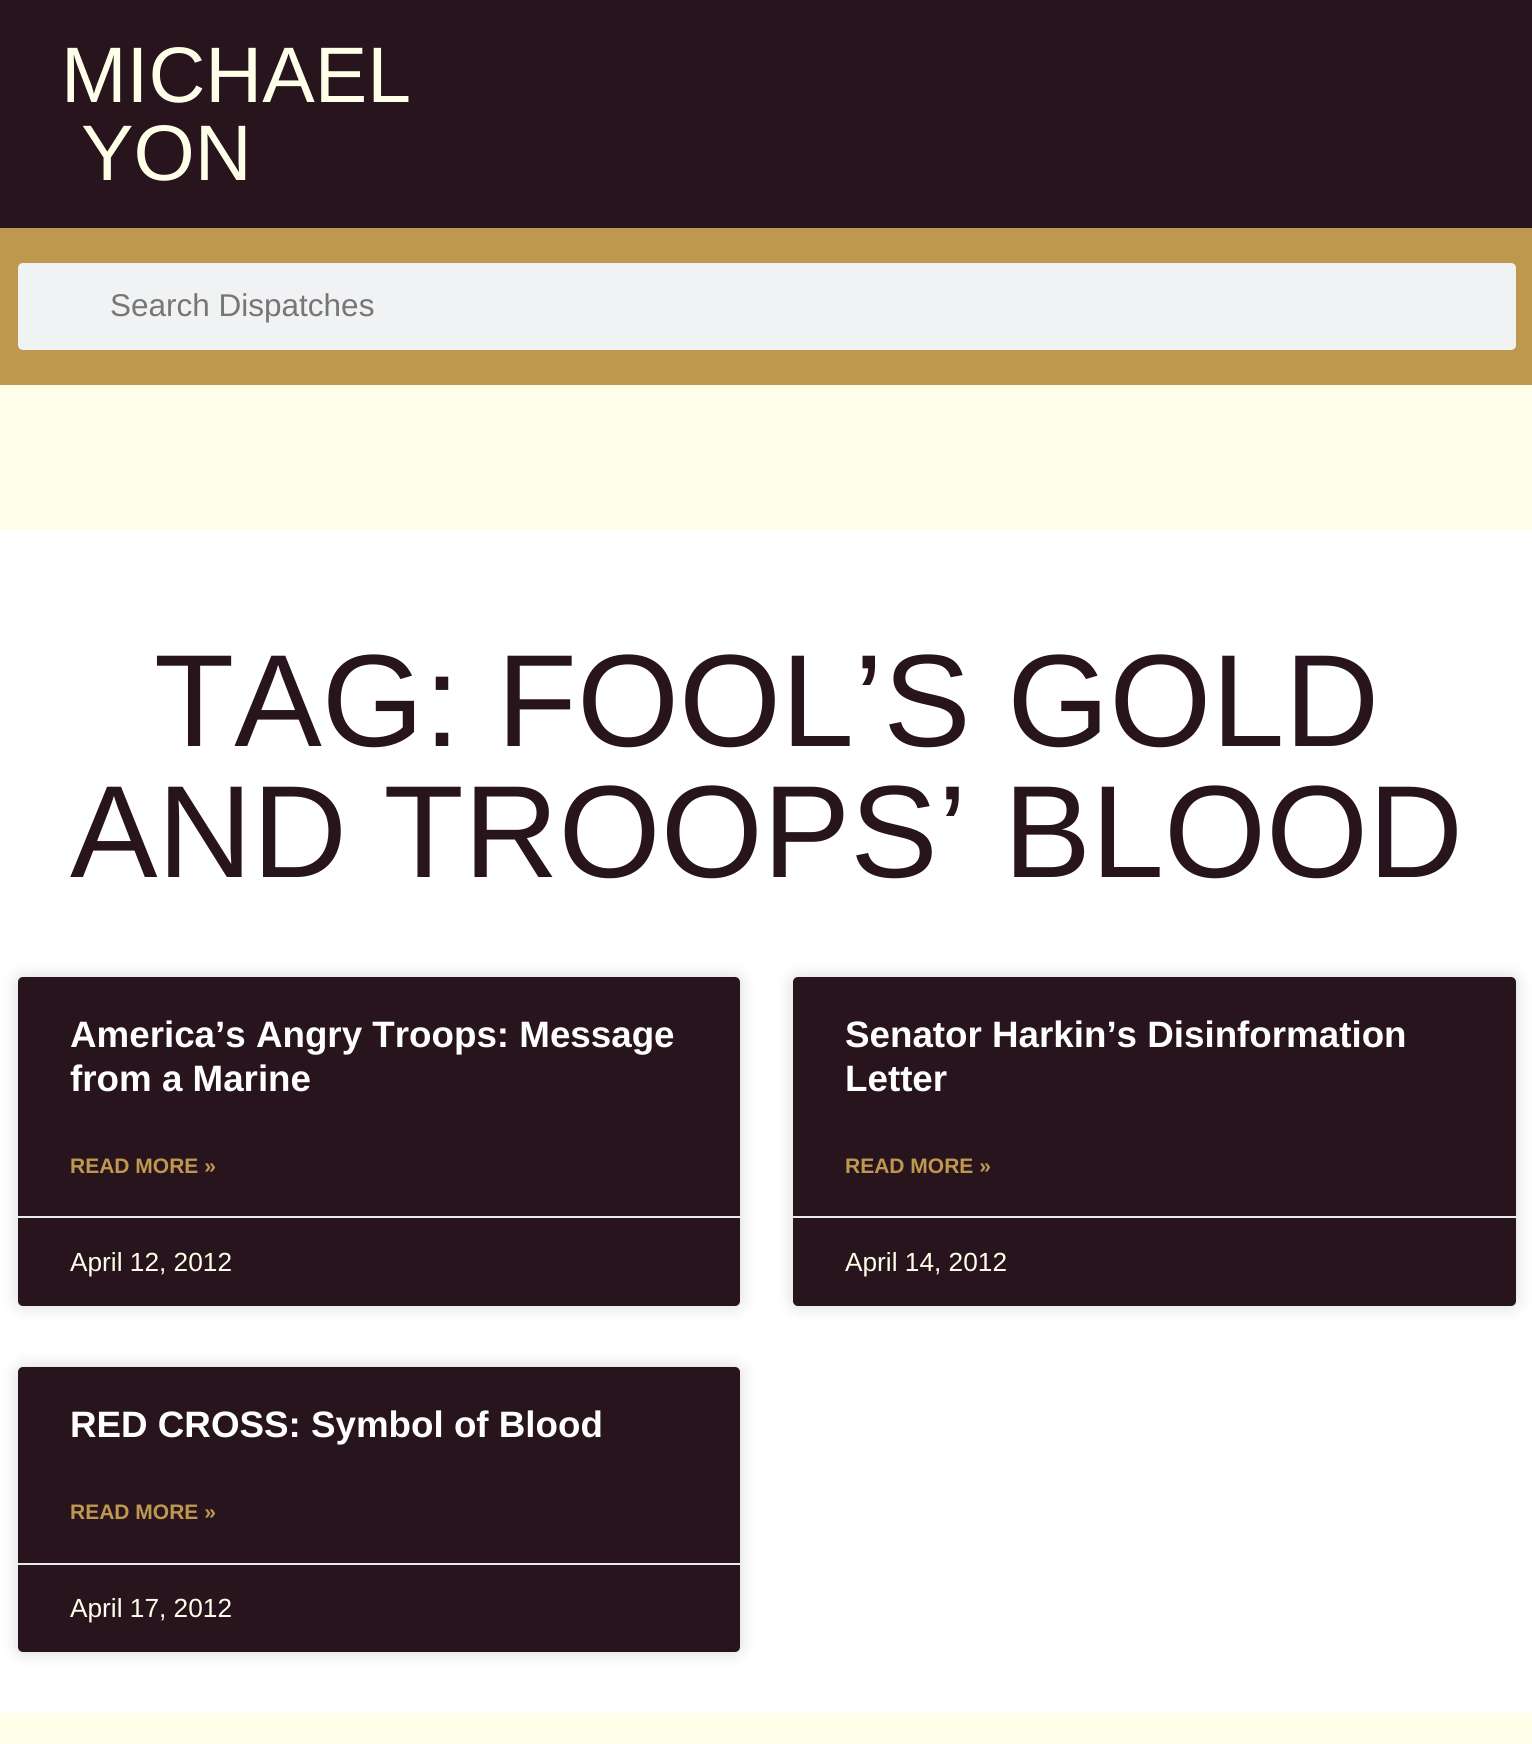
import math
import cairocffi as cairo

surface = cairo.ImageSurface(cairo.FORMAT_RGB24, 1532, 1744)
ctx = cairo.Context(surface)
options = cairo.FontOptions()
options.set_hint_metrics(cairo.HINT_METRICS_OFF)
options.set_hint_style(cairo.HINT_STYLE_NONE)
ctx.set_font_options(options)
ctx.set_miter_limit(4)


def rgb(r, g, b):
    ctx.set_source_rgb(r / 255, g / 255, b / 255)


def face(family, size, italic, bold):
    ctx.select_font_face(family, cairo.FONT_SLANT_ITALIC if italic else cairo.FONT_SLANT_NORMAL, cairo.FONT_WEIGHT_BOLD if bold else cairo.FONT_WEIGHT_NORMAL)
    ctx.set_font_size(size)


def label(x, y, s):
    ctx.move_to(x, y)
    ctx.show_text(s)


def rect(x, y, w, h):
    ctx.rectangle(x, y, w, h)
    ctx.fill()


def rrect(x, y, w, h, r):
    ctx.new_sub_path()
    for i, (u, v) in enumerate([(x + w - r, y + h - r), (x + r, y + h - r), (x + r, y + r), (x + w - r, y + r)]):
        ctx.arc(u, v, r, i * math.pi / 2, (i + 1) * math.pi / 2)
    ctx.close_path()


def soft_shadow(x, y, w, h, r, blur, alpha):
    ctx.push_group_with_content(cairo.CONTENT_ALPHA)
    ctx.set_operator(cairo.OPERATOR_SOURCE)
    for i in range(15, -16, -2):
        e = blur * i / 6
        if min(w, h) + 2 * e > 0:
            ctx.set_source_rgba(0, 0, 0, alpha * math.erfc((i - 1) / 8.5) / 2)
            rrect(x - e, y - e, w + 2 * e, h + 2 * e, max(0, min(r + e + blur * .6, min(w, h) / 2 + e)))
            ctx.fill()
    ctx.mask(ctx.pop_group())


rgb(255, 255, 255)
ctx.paint()
rgb(39, 20, 29)
rect(0, 0, 1532, 228)
face('Liberation Sans', 78.75, 0, 0)
rgb(255, 255, 233)
label(61, 102, 'MICHAEL')
label(81, 180, 'YON')
rgb(191, 152, 80)
rect(0, 228, 1532, 157)
rgb(241, 242, 243)
rrect(18, 263, 1498, 87, 5)
ctx.fill()
face('Liberation Sans', 31.5, 0, 0)
rgb(119, 118, 119)
label(110, 316, 'Search Dispatches')
rgb(255, 255, 233)
rect(0, 385, 1532, 145)
face('Liberation Sans', 131.25, 0, 0)
rgb(39, 20, 29)
label(154, 746, 'TAG: FOOL’S GOLD')
label(70, 877, 'AND TROOPS’ BLOOD')
rgb(0, 0, 0)
soft_shadow(18, 977, 722, 329, 5, 9, 0.15)
rgb(39, 20, 29)
rrect(18, 977, 722, 329, 5)
ctx.fill()
face('Liberation Sans', 36.75, 0, 1)
rgb(255, 255, 255)
label(70, 1047, 'America’s Angry Troops: Message')
label(70, 1091, 'from a Marine')
face('Liberation Sans', 21, 0, 1)
rgb(191, 152, 80)
label(70, 1173, 'READ MORE »')
rgb(234, 234, 234)
rect(18, 1216, 722, 2)
face('Liberation Sans', 26.25, 0, 0)
rgb(255, 255, 233)
label(70, 1271, 'April 12, 2012')
rgb(0, 0, 0)
soft_shadow(793, 977, 723, 329, 5, 9, 0.15)
rgb(39, 20, 29)
rrect(793, 977, 723, 329, 5)
ctx.fill()
face('Liberation Sans', 36.75, 0, 1)
rgb(255, 255, 255)
label(845, 1047, 'Senator Harkin’s Disinformation')
label(845, 1091, 'Letter')
face('Liberation Sans', 21, 0, 1)
rgb(191, 152, 80)
label(845, 1173, 'READ MORE »')
rgb(234, 234, 234)
rect(793, 1216, 723, 2)
face('Liberation Sans', 26.25, 0, 0)
rgb(255, 255, 233)
label(845, 1271, 'April 14, 2012')
rgb(0, 0, 0)
soft_shadow(18, 1367, 722, 285, 5, 9, 0.15)
rgb(39, 20, 29)
rrect(18, 1367, 722, 285, 5)
ctx.fill()
face('Liberation Sans', 36.75, 0, 1)
rgb(255, 255, 255)
label(70, 1437, 'RED CROSS: Symbol of Blood')
face('Liberation Sans', 21, 0, 1)
rgb(191, 152, 80)
label(70, 1519, 'READ MORE »')
rgb(234, 234, 234)
rect(18, 1563, 722, 2)
face('Liberation Sans', 26.25, 0, 0)
rgb(255, 255, 233)
label(70, 1617, 'April 17, 2012')
rect(0, 1713, 1532, 31)
surface.write_to_png('render.png')
